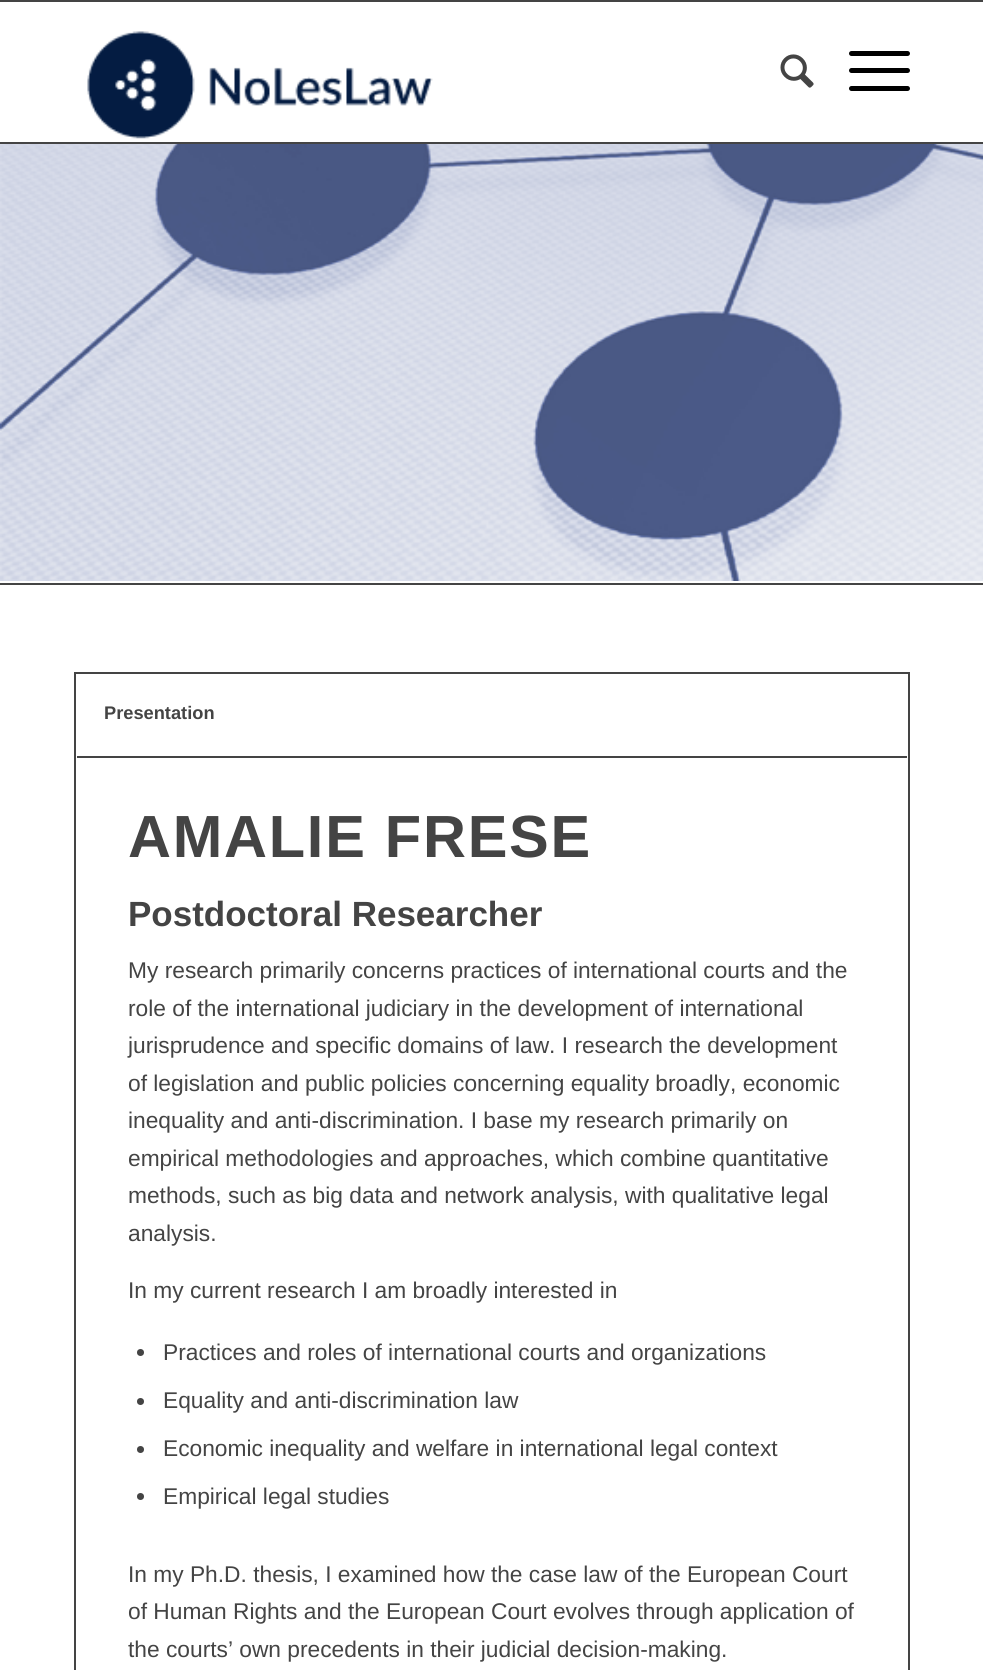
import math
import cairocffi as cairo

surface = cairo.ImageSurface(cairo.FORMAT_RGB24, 983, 1670)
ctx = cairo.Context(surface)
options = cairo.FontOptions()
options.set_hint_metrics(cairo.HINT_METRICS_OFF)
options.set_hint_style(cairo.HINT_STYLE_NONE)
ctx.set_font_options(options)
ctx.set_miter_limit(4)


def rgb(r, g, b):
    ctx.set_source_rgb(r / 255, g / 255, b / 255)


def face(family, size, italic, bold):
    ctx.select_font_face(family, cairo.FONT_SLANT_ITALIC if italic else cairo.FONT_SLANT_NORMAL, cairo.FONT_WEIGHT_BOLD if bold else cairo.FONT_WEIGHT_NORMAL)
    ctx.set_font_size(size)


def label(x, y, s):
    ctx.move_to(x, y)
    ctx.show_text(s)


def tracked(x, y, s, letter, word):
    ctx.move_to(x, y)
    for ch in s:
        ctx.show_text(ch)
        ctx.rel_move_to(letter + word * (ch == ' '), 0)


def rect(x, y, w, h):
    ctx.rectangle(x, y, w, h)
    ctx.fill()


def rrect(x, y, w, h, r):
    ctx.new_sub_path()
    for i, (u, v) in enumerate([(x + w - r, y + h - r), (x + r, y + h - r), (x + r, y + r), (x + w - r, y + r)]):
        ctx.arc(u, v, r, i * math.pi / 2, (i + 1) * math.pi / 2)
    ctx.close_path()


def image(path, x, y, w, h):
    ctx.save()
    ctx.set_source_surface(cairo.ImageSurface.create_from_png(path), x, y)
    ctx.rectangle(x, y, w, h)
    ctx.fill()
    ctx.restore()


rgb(255, 255, 255)
ctx.paint()
rgb(68, 68, 68)
rect(0, 0, 983, 2)
rect(0, 142, 983, 2)
image('image0.png', 87, 31, 346, 108)
image('image1.png', 780, 54, 34, 34)
rgb(0, 0, 0)
rrect(849, 68, 61, 5, 2.5)
ctx.fill()
rrect(849, 51, 61, 5, 2.5)
ctx.fill()
rrect(849, 86, 61, 5, 2.5)
ctx.fill()
image('image2.png', 0, 144, 983, 437)
rgb(68, 68, 68)
rect(0, 583, 983, 2)
rect(908, 672, 2, 998)
rect(74, 672, 2, 998)
rect(75, 672, 833, 2)
face('Liberation Sans', 18.25, 0, 1)
label(104, 719, 'Presentation')
rect(77, 756, 830, 2)
face('Liberation Sans', 59.5, 0, 1)
tracked(128, 857, 'AMALIE FRESE', 1.75, 0)
face('Liberation Sans', 35, 0, 1)
label(128, 926, 'Postdoctoral Researcher')
face('Liberation Sans', 22.75, 0, 0)
label(128, 978, 'My research primarily concerns practices of international courts and the')
label(128, 1016, 'role of the international judiciary in the development of international')
label(128, 1053, 'jurisprudence and specific domains of law. I research the development')
label(128, 1091, 'of legislation and public policies concerning equality broadly, economic')
label(128, 1128, 'inequality and anti-discrimination. I base my research primarily on')
label(128, 1166, 'empirical methodologies and approaches, which combine quantitative')
label(128, 1203, 'methods, such as big data and network analysis, with qualitative legal')
label(128, 1241, 'analysis.')
label(128, 1298, 'In my current research I am broadly interested in')
ctx.new_path()
ctx.arc(140.5, 1352.5, 3.5, 0, 2 * math.pi)
ctx.fill()
label(163, 1360, 'Practices and roles of international courts and organizations')
ctx.new_path()
ctx.arc(140.5, 1401.5, 3.5, 0, 2 * math.pi)
ctx.fill()
label(163, 1408, 'Equality and anti-discrimination law')
ctx.new_path()
ctx.arc(140.5, 1449.5, 3.5, 0, 2 * math.pi)
ctx.fill()
label(163, 1456, 'Economic inequality and welfare in international legal context')
ctx.new_path()
ctx.arc(140.5, 1496.5, 3.5, 0, 2 * math.pi)
ctx.fill()
label(163, 1504, 'Empirical legal studies')
label(128, 1582, 'In my Ph.D. thesis, I examined how the case law of the European Court')
label(128, 1619, 'of Human Rights and the European Court evolves through application of')
label(128, 1657, 'the courts’ own precedents in their judicial decision-making.')
surface.write_to_png('render.png')
